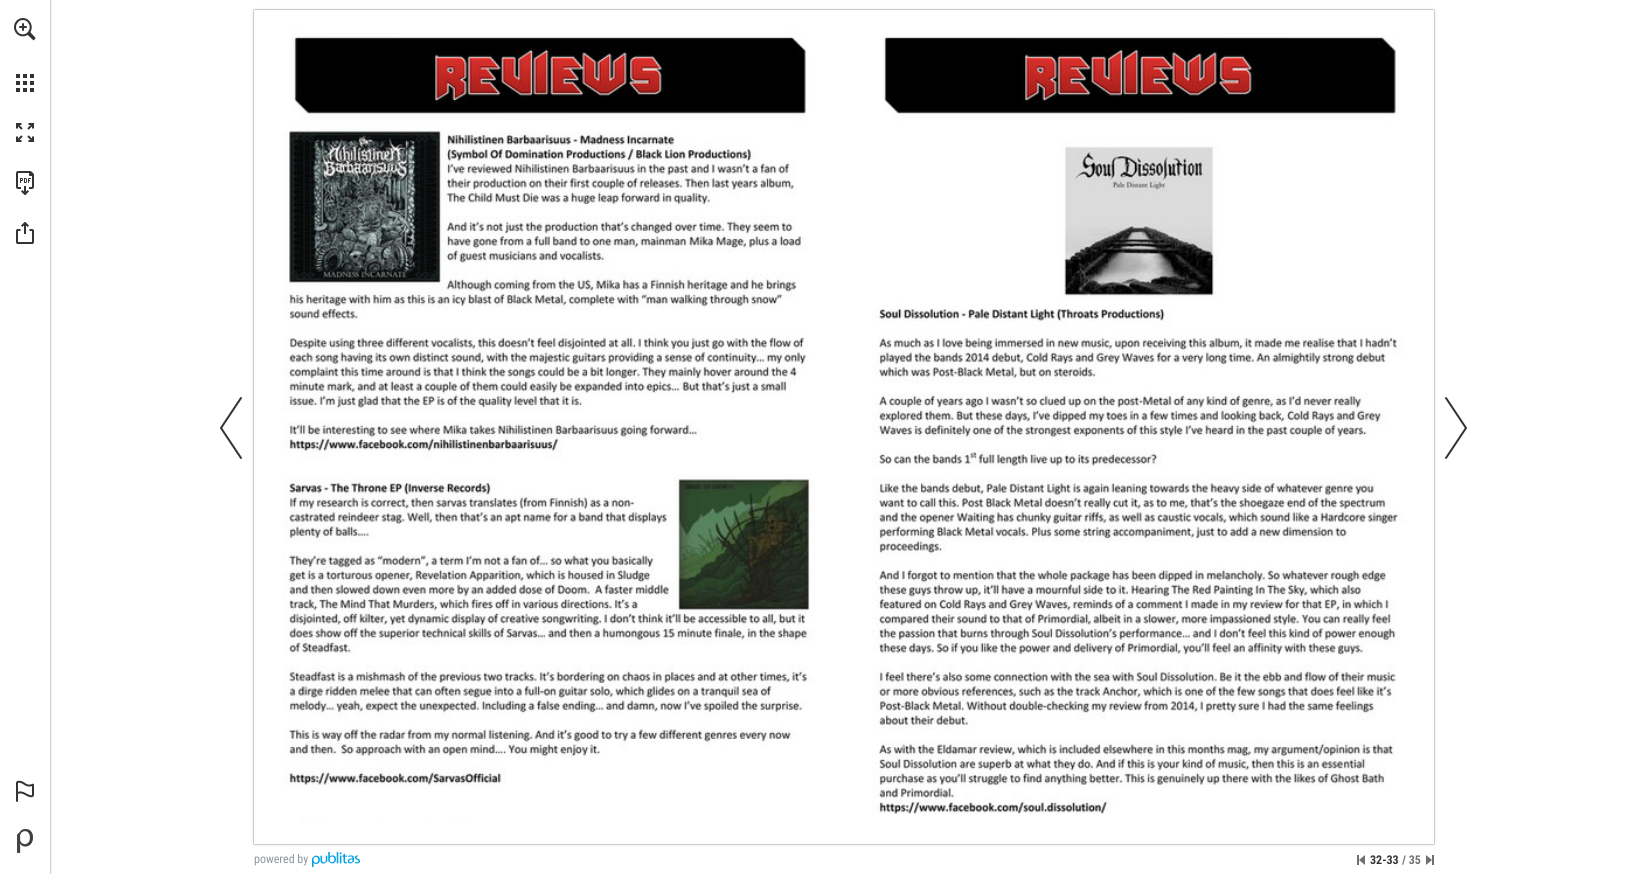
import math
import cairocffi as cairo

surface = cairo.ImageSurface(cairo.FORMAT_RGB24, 1638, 874)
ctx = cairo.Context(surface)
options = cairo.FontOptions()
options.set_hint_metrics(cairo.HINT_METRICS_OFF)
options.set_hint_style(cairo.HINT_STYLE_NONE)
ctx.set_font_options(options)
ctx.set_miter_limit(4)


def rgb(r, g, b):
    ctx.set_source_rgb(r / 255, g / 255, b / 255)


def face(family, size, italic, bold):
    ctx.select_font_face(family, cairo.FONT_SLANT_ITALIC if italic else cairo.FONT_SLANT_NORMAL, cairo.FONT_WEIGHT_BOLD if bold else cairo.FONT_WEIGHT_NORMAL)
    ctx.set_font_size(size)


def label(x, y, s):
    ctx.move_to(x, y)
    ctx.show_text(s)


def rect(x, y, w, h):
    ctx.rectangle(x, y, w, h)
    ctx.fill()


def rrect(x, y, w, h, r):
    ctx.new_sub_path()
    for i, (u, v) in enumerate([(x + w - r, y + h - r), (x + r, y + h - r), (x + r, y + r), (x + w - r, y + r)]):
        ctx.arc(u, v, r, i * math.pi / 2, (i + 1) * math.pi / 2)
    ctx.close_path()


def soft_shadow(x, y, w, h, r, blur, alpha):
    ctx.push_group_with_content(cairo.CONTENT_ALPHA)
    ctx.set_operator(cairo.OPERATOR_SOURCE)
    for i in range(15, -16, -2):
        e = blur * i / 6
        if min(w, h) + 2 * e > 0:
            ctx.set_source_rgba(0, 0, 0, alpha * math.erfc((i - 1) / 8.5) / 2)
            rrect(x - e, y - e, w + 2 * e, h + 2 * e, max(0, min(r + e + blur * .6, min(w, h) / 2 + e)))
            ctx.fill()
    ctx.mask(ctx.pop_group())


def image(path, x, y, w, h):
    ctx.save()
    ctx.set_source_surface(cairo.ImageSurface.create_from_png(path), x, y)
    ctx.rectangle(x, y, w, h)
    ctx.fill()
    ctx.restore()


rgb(255, 255, 255)
ctx.paint()
rgb(0, 0, 0)
soft_shadow(1, 0, 50, 874, 0, 0.5, 0.2)
rgb(255, 255, 255)
rect(0, 0, 50, 874)
image('image0.png', 14, 18, 22, 23)
image('image1.png', 16, 74, 18, 18)
image('image2.png', 16, 123, 18, 19)
image('image3.png', 16, 171, 18, 24)
image('image4.png', 16, 222, 18, 22)
image('image5.png', 16, 780, 18, 22)
image('image6.png', 17, 829, 16, 24)
rgb(18, 18, 18)
soft_shadow(252, 8, 1184, 838, 3, 1, 0.05)
rgb(255, 255, 255)
rrect(253.5, 9.5, 1181, 835, 1.5)
ctx.fill_preserve()
rgb(204, 204, 204)
ctx.set_line_width(1)
ctx.stroke()
image('image7.png', 219, 397, 23, 62)
image('image8.png', 254, 10, 560, 834)
image('image9.png', 872, 10, 562, 834)
image('image10.png', 282, 38, 532, 779)
image('image11.png', 872, 36, 533, 778)
image('image12.png', 312, 852, 48, 15)
face('Roboto Condensed', 12, 0, 0)
rgb(143, 150, 155)
label(254, 863, 'powered by')
image('image13.png', 1445, 397, 23, 62)
image('image14.png', 1357, 855, 8, 10)
face('Roboto Condensed', 12, 0, 1)
rgb(51, 51, 51)
label(1370, 864, '32-33')
rgb(112, 112, 112)
label(1402, 864, '/ 35')
image('image15.png', 1426, 855, 8, 10)
surface.write_to_png('render.png')
